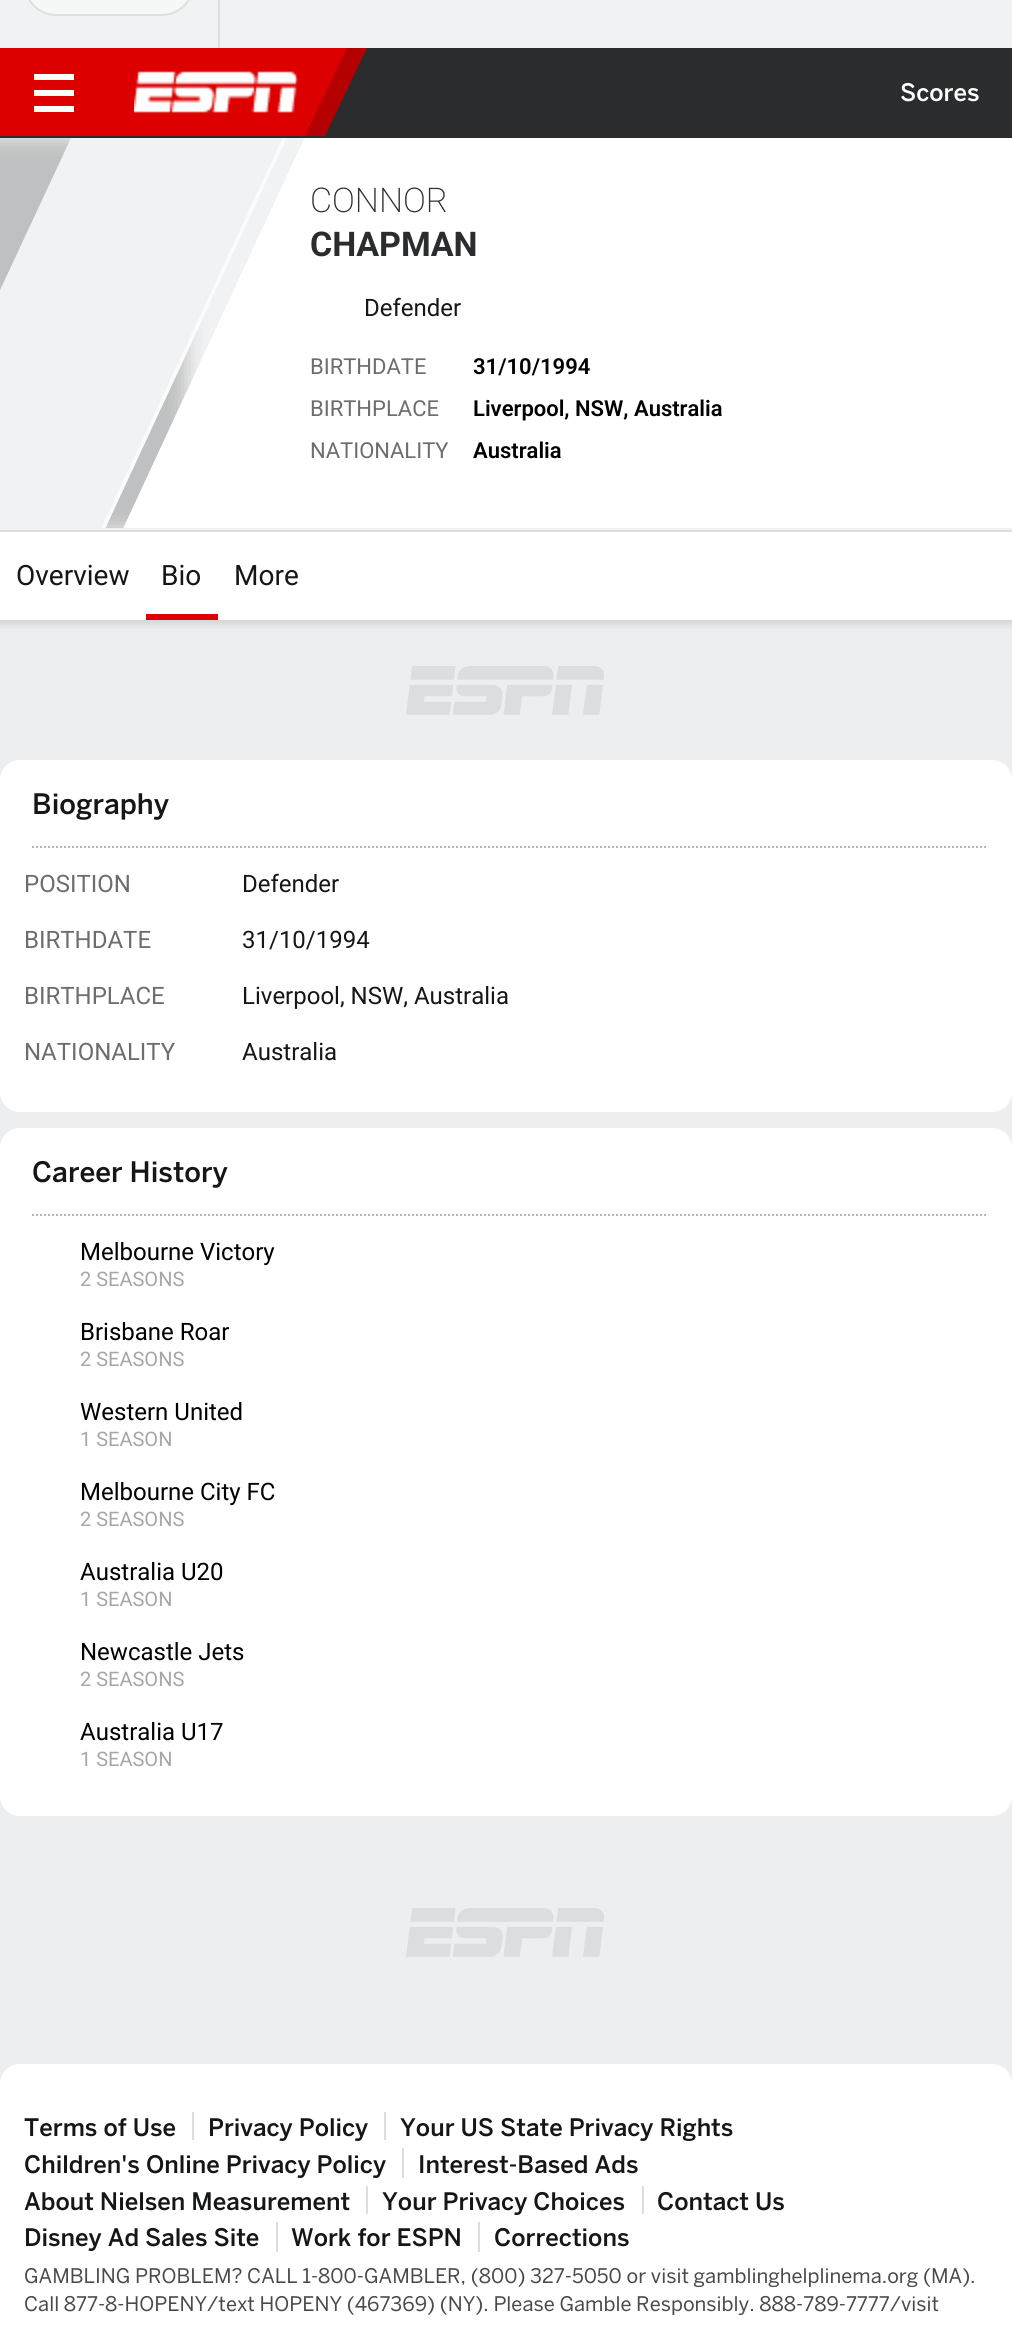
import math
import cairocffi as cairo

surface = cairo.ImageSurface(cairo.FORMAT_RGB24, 1012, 2332)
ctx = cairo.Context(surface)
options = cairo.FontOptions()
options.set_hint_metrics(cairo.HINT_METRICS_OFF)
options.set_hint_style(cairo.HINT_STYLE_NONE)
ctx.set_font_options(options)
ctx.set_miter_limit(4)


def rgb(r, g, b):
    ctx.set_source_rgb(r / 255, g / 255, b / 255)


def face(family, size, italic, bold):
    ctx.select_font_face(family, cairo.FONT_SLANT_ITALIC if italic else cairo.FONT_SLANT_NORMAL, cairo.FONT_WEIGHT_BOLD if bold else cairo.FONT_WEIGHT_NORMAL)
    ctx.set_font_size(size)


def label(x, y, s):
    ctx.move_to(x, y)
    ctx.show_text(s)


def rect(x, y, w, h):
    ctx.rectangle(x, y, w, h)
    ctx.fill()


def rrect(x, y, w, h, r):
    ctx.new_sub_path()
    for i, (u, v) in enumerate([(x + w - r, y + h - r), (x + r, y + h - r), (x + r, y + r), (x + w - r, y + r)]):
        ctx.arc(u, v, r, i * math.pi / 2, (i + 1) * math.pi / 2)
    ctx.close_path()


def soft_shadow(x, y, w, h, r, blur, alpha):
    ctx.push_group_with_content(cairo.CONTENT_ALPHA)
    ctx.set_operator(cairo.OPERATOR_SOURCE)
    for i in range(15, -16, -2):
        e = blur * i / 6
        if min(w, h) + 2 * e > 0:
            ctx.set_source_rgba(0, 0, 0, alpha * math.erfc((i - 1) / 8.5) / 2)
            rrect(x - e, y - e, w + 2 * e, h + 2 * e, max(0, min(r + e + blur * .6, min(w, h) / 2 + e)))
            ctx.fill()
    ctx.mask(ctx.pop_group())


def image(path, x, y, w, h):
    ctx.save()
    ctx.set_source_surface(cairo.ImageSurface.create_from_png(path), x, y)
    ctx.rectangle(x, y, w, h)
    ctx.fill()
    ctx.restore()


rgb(237, 238, 240)
ctx.paint()
rgb(241, 242, 243)
rect(0, 0, 1012, 48)
rgb(222, 223, 225)
rect(218, 0, 2, 48)
rgb(246, 247, 247)
rrect(25, -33, 168, 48, 31)
ctx.fill_preserve()
rgb(222, 223, 225)
ctx.stroke()
rgb(220, 221, 223)
rect(0, 530, 1012, 2)
rgb(241, 242, 243)
rect(0, 528, 1012, 2)
rect(0, 138, 305, 390)
ctx.save()
ctx.rectangle(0, 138, 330, 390)
ctx.clip()
ctx.set_fill_rule(cairo.FILL_RULE_EVEN_ODD)
ctx.new_path()
ctx.move_to(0, 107)
ctx.line_to(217, 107)
ctx.line_to(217, 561)
ctx.line_to(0, 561)
ctx.close_path()
ctx.move_to(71.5, 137)
ctx.line_to(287.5, 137)
ctx.line_to(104.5, 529)
ctx.line_to(-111.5, 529)
ctx.close_path()
ctx.clip()
rgb(72, 73, 73)
soft_shadow(-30, 138, 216, 392, 0, 10, 0.3)
ctx.restore()
rgb(43, 44, 45)
rect(0, 48, 1012, 90)
rgb(180, 0, 0)
ctx.new_path()
ctx.move_to(107, 48)
ctx.line_to(367, 48)
ctx.line_to(325, 136)
ctx.line_to(65, 136)
ctx.close_path()
ctx.fill()
rgb(221, 0, 0)
ctx.new_path()
ctx.move_to(-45, 48)
ctx.line_to(347, 48)
ctx.line_to(305, 136)
ctx.line_to(-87, 136)
ctx.close_path()
ctx.fill()
image('image0.png', 134, 71, 164, 42)
rgb(255, 255, 255)
rect(34, 90, 40, 6)
rect(34, 74, 40, 6)
rect(34, 106, 40, 6)
face('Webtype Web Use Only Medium', 24, 0, 0)
label(900, 101, 'Scores')
rect(330, 138, 682, 390)
ctx.save()
ctx.rectangle(0, 138, 330, 390)
ctx.clip()
rgb(251, 251, 251)
ctx.new_path()
ctx.move_to(283, 137)
ctx.line_to(287, 137)
ctx.line_to(105, 529)
ctx.line_to(101, 529)
ctx.close_path()
ctx.fill()
rgb(255, 255, 255)
ctx.new_path()
ctx.move_to(305, 137)
ctx.line_to(515, 137)
ctx.line_to(333, 529)
ctx.line_to(123, 529)
ctx.close_path()
ctx.fill()
ctx.set_source_rgba(1, 1, 1, 0.9)
ctx.new_path()
ctx.move_to(305, 137)
ctx.line_to(515, 137)
ctx.line_to(333, 529)
ctx.line_to(123, 529)
ctx.close_path()
ctx.fill()
ctx.restore()
face('Roboto ExtraLight', 34, 0, 0)
rgb(43, 44, 45)
label(310, 212, 'CONNOR')
face('Roboto', 34, 0, 1)
label(310, 256, 'CHAPMAN')
face('Roboto', 24, 0, 0)
rgb(21, 22, 23)
label(364, 316, 'Defender')
face('Roboto', 22, 0, 0)
rgb(108, 109, 111)
label(310, 374, 'BIRTHDATE')
face('Roboto SemiBold', 22, 0, 0)
rgb(0, 0, 0)
label(473, 374, '31/10/1994')
face('Roboto', 22, 0, 0)
rgb(108, 109, 111)
label(310, 416, 'BIRTHPLACE')
face('Roboto SemiBold', 22, 0, 0)
rgb(0, 0, 0)
label(473, 416, 'Liverpool, NSW, Australia')
face('Roboto', 22, 0, 0)
rgb(108, 109, 111)
label(310, 458, 'NATIONALITY')
face('Roboto SemiBold', 22, 0, 0)
rgb(0, 0, 0)
label(473, 458, 'Australia')
rgb(255, 255, 255)
rect(0, 532, 1012, 88)
face('Roboto', 28, 0, 0)
rgb(21, 22, 23)
label(16, 585, 'Overview')
rgb(221, 0, 0)
rect(146, 614, 72, 6)
rgb(21, 22, 23)
label(161, 585, 'Bio')
label(234, 585, 'More')
gradient = cairo.LinearGradient(506, 620, 506, 630)
gradient.add_color_stop_rgba(0, 0.835, 0.839, 0.847, 1)
gradient.add_color_stop_rgba(1, 0.929, 0.933, 0.941, 1)
ctx.set_source(gradient)
rect(0, 620, 1012, 9)
image('image1.png', 406, 666, 198, 49)
rgb(255, 255, 255)
rrect(0, 760, 1012, 352, 20)
ctx.fill()
ctx.new_path()
ctx.move_to(32, 847)
ctx.line_to(988, 847)
rgb(181, 183, 183)
ctx.set_dash([2, 2])
ctx.stroke()
face('Webtype Web Use Only Medium', 28, 0, 0)
rgb(21, 22, 23)
label(32, 814, 'Biography')
face('Roboto', 24, 0, 0)
rgb(108, 109, 111)
label(24, 892, 'POSITION')
rgb(21, 22, 23)
label(242, 892, 'Defender')
rgb(108, 109, 111)
label(24, 948, 'BIRTHDATE')
rgb(21, 22, 23)
label(242, 948, '31/10/1994')
rgb(108, 109, 111)
label(24, 1004, 'BIRTHPLACE')
rgb(21, 22, 23)
label(242, 1004, 'Liverpool, NSW, Australia')
rgb(108, 109, 111)
label(24, 1060, 'NATIONALITY')
rgb(21, 22, 23)
label(242, 1060, 'Australia')
rgb(255, 255, 255)
rrect(0, 1128, 1012, 688, 20)
ctx.fill()
ctx.new_path()
ctx.move_to(32, 1215)
ctx.line_to(988, 1215)
rgb(181, 183, 183)
ctx.stroke()
face('Webtype Web Use Only Medium', 28, 0, 0)
rgb(21, 22, 23)
label(32, 1182, 'Career History')
face('Roboto', 24, 0, 0)
rgb(0, 0, 0)
label(80, 1260, 'Melbourne Victory')
face('Roboto', 20, 0, 0)
rgb(165, 166, 167)
label(80, 1286, '2 SEASONS')
face('Roboto', 24, 0, 0)
rgb(0, 0, 0)
label(80, 1340, 'Brisbane Roar')
face('Roboto', 20, 0, 0)
rgb(165, 166, 167)
label(80, 1366, '2 SEASONS')
face('Roboto', 24, 0, 0)
rgb(0, 0, 0)
label(80, 1420, 'Western United')
face('Roboto', 20, 0, 0)
rgb(165, 166, 167)
label(80, 1446, '1 SEASON')
face('Roboto', 24, 0, 0)
rgb(0, 0, 0)
label(80, 1500, 'Melbourne City FC')
face('Roboto', 20, 0, 0)
rgb(165, 166, 167)
label(80, 1526, '2 SEASONS')
face('Roboto', 24, 0, 0)
rgb(0, 0, 0)
label(80, 1580, 'Australia U20')
face('Roboto', 20, 0, 0)
rgb(165, 166, 167)
label(80, 1606, '1 SEASON')
face('Roboto', 24, 0, 0)
rgb(0, 0, 0)
label(80, 1660, 'Newcastle Jets')
face('Roboto', 20, 0, 0)
rgb(165, 166, 167)
label(80, 1686, '2 SEASONS')
face('Roboto', 24, 0, 0)
rgb(0, 0, 0)
label(80, 1740, 'Australia U17')
face('Roboto', 20, 0, 0)
rgb(165, 166, 167)
label(80, 1766, '1 SEASON')
image('image1.png', 406, 1908, 198, 49)
rgb(255, 255, 255)
rrect(0, 2064, 1012, 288, 20)
ctx.fill()
face('Webtype Web Use Only Medium', 24, 0, 0)
rgb(21, 22, 23)
label(24, 2136, 'Terms of Use')
rgb(220, 221, 223)
rect(192, 2112, 2, 28)
rgb(21, 22, 23)
label(208, 2136, 'Privacy Policy')
rgb(220, 221, 223)
rect(384, 2112, 2, 28)
rgb(21, 22, 23)
label(400, 2136, 'Your US State Privacy Rights')
label(24, 2173, 'Children\'s Online Privacy Policy')
rgb(220, 221, 223)
rect(402, 2148, 2, 30)
rgb(21, 22, 23)
label(418, 2173, 'Interest-Based Ads')
label(24, 2210, 'About Nielsen Measurement')
rgb(220, 221, 223)
rect(366, 2186, 2, 28)
rgb(21, 22, 23)
label(382, 2210, 'Your Privacy Choices')
rgb(220, 221, 223)
rect(642, 2186, 2, 28)
rgb(21, 22, 23)
label(657, 2210, 'Contact Us')
label(24, 2246, 'Disney Ad Sales Site')
rgb(220, 221, 223)
rect(276, 2222, 2, 30)
rgb(21, 22, 23)
label(291, 2246, 'Work for ESPN')
rgb(220, 221, 223)
rect(478, 2222, 2, 30)
rgb(21, 22, 23)
label(494, 2246, 'Corrections')
face('Webtype Web Use Only', 20, 0, 0)
rgb(72, 73, 74)
label(24, 2283, 'GAMBLING PROBLEM? CALL 1-800-GAMBLER, (800) 327-5050 or visit gamblinghelplinema.org (MA).')
label(24, 2311, 'Call 877-8-HOPENY/text HOPENY (467369) (NY). Please Gamble Responsibly. 888-789-7777/visit')
surface.write_to_png('render.png')
